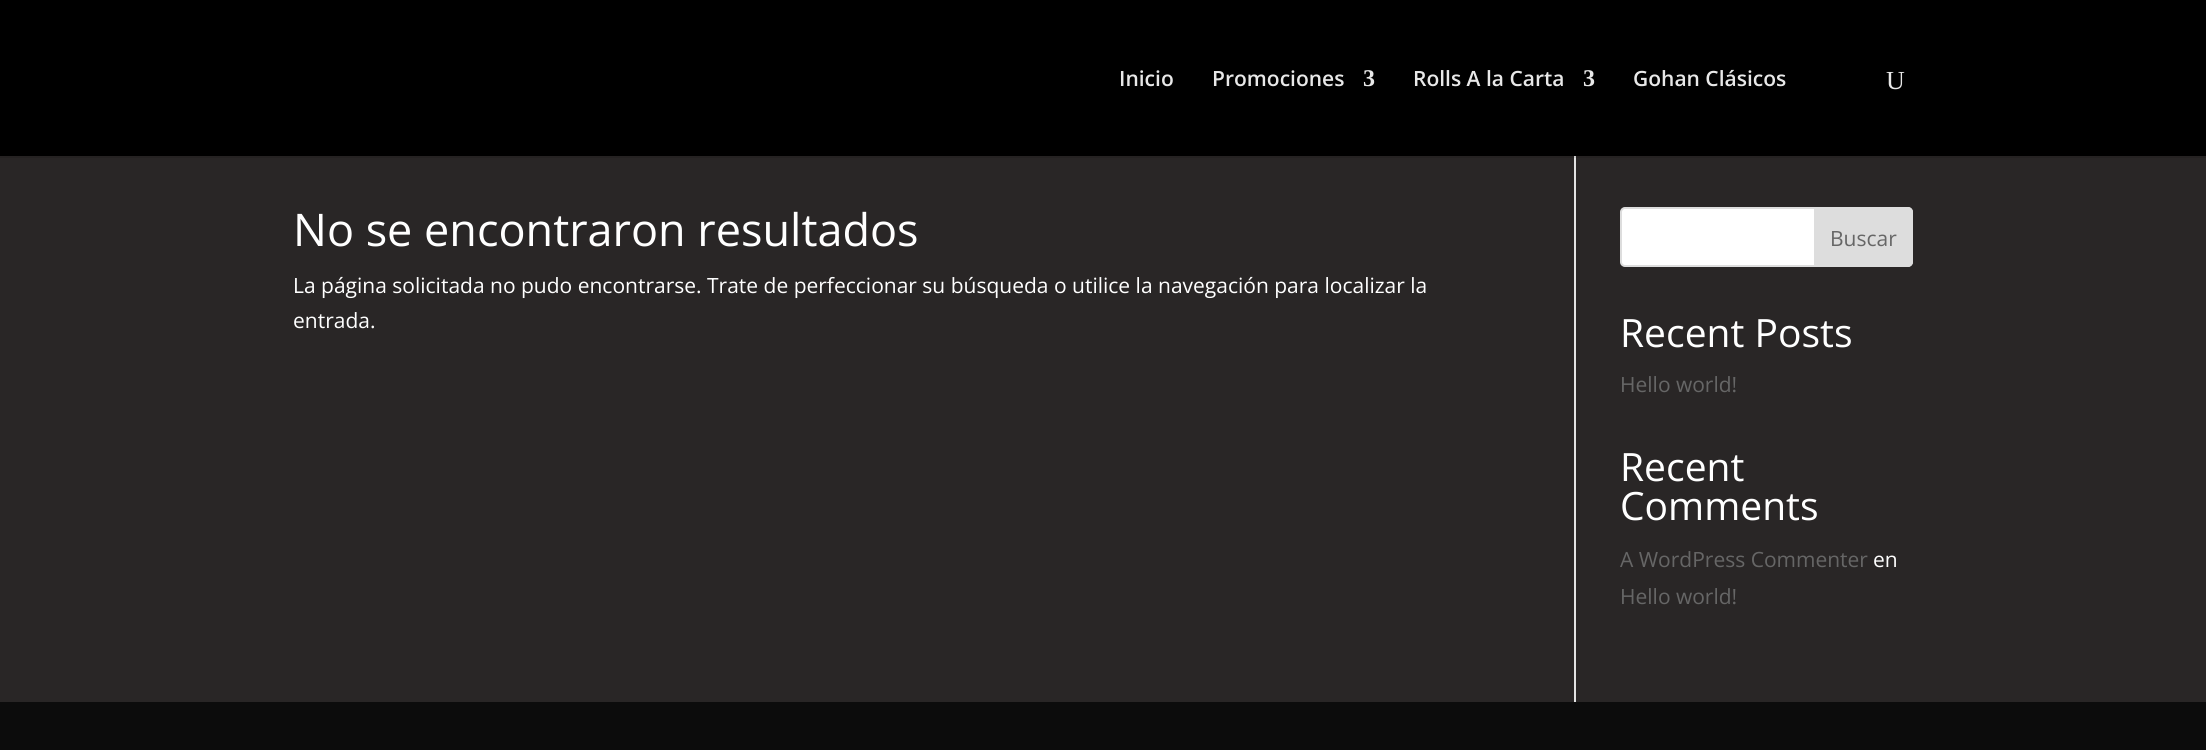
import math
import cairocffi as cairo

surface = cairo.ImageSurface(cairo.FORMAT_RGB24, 2206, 750)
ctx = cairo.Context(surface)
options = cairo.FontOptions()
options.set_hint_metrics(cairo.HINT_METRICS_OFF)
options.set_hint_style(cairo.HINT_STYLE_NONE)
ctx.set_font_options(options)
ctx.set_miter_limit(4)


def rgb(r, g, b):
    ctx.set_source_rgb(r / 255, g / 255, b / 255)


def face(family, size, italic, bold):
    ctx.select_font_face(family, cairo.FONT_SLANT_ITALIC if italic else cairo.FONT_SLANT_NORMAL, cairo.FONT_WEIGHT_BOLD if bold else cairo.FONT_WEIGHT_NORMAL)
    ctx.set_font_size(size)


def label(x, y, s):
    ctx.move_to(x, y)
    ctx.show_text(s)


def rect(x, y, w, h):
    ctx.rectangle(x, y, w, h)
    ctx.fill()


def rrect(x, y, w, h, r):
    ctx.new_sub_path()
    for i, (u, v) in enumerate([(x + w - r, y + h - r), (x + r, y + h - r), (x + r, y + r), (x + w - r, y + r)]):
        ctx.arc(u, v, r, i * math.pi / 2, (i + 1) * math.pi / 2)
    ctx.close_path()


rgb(41, 38, 38)
ctx.paint()
rgb(226, 226, 226)
rect(1574, 156, 2, 546)
ctx.set_source_rgba(0, 0, 0, 0.1)
ctx.new_path()
ctx.move_to(0, 156)
ctx.line_to(0, 158)
ctx.line_to(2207, 158)
ctx.line_to(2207, 2)
ctx.line_to(2206, 2)
ctx.line_to(2206, 156)
ctx.close_path()
ctx.fill()
rgb(0, 0, 0)
rect(0, 0, 2206, 156)
face('Open Sans SemiBold', 21, 0, 0)
rgb(232, 232, 232)
label(1119, 86, 'Inicio')
label(1212, 86, 'Promociones')
face('Liberation Serif', 24, 0, 1)
label(1363, 86, '3')
face('Open Sans SemiBold', 21, 0, 0)
label(1413, 86, 'Rolls A la Carta')
face('Liberation Serif', 24, 0, 1)
label(1583, 86, '3')
face('Open Sans SemiBold', 21, 0, 0)
label(1633, 86, 'Gohan Clásicos')
face('Liberation Serif', 26, 0, 0)
label(1886, 89, 'U')
face('Open Sans', 45, 0, 0)
rgb(255, 255, 255)
label(293, 246, 'No se encontraron resultados')
face('Open Sans', 21, 0, 0)
label(293, 293, 'La página solicitada no pudo encontrarse. Trate de perfeccionar su búsqueda o utilice la navegación para localizar la')
label(293, 328, 'entrada.')
rrect(1621, 208, 291, 58, 4)
ctx.fill_preserve()
rgb(221, 221, 221)
ctx.stroke()
ctx.new_path()
ctx.move_to(1815, 208)
ctx.line_to(1908, 208)
ctx.curve_to(1910, 208, 1912, 210, 1912, 212)
ctx.line_to(1912, 262)
ctx.curve_to(1912, 264, 1910, 266, 1908, 266)
ctx.line_to(1815, 266)
ctx.close_path()
ctx.fill_preserve()
ctx.stroke()
rgb(102, 102, 102)
label(1830, 246, 'Buscar')
face('Open Sans', 39, 0, 0)
rgb(255, 255, 255)
label(1620, 347, 'Recent Posts')
face('Open Sans', 21, 0, 0)
rgb(102, 102, 102)
label(1620, 392, 'Hello world!')
face('Open Sans', 39, 0, 0)
rgb(255, 255, 255)
label(1620, 481, 'Recent')
label(1620, 520, 'Comments')
face('Open Sans', 21, 0, 0)
rgb(102, 102, 102)
label(1620, 567, 'A WordPress Commenter')
rgb(255, 255, 255)
label(1873, 567, 'en')
rgb(102, 102, 102)
label(1620, 604, 'Hello world!')
rgb(12, 12, 12)
rect(0, 702, 2206, 48)
surface.write_to_png('render.png')
